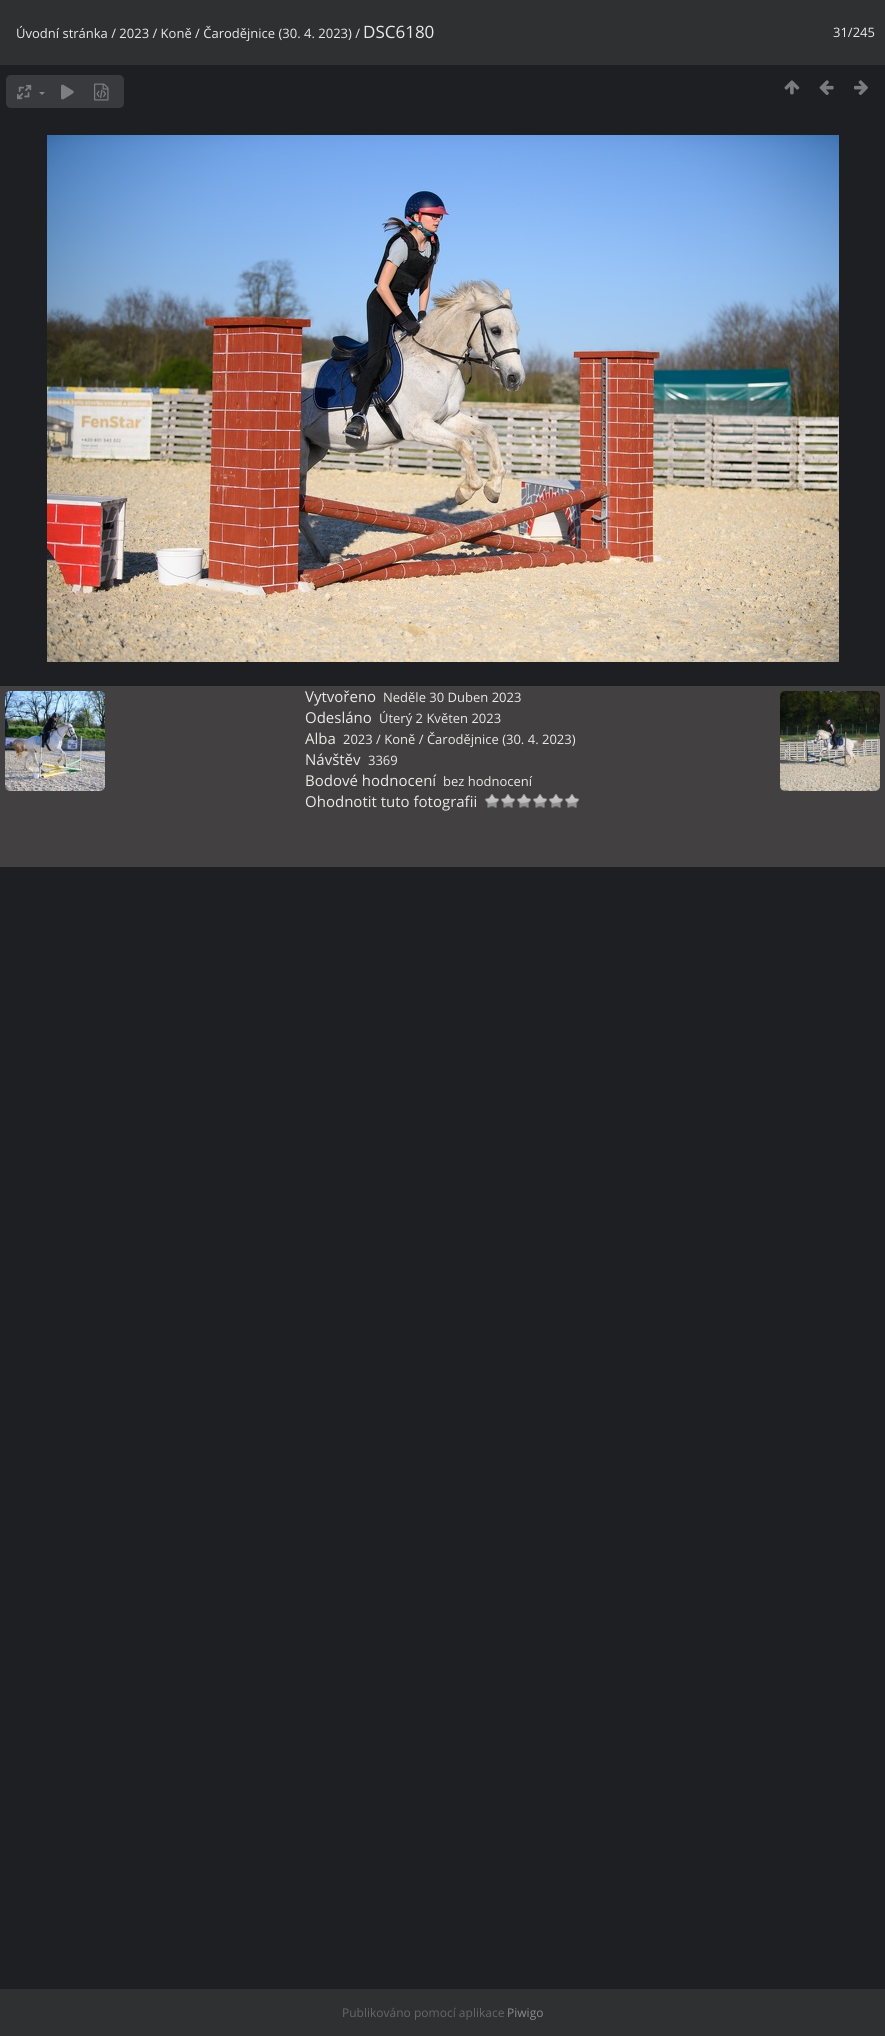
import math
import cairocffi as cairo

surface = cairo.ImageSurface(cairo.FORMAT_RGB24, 885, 2036)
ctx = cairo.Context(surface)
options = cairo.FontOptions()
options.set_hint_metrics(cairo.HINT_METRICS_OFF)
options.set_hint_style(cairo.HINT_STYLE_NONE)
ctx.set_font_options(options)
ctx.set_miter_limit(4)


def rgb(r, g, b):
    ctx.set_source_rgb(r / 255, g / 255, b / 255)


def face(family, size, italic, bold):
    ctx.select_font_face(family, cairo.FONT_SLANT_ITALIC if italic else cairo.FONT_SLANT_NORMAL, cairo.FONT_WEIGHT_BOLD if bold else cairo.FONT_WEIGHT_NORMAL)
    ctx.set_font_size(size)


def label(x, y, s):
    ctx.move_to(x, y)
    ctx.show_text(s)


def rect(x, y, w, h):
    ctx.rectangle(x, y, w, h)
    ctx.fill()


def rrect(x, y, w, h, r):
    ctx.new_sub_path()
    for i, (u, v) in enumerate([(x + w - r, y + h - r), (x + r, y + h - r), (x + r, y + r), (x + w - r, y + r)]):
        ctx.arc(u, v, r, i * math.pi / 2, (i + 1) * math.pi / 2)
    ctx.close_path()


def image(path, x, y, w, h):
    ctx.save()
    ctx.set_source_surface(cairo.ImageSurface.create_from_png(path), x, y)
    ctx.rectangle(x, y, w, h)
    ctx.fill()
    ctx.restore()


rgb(30, 31, 35)
ctx.paint()
rgb(47, 48, 50)
rect(0, 0, 885, 65)
face('Open Sans', 13, 0, 0)
rgb(234, 234, 233)
label(16, 38, 'Úvodní stránka / 2023 / Koně / Čarodějnice (30. 4. 2023) /')
face('Open Sans', 17, 0, 0)
label(363, 38, 'DSC6180')
face('Open Sans', 13, 0, 0)
label(833, 37, '31/245')
rgb(57, 58, 61)
rrect(6, 75, 118, 33, 5)
ctx.fill()
image('image0.png', 17, 84, 15, 16)
rgb(132, 133, 136)
ctx.new_path()
ctx.move_to(39, 92)
ctx.line_to(45, 92)
ctx.line_to(42, 95)
ctx.close_path()
ctx.fill()
image('image1.png', 61, 84, 13, 16)
image('image2.png', 94, 83, 15, 18)
image('image3.png', 784, 80, 16, 15)
image('image4.png', 819, 80, 15, 15)
image('image5.png', 854, 80, 14, 15)
image('image6.png', 47, 135, 792, 527)
rgb(66, 64, 64)
rect(0, 686, 885, 181)
face('Open Sans', 15, 0, 0)
rgb(234, 234, 233)
label(305, 702, 'Vytvořeno')
face('Open Sans', 13, 0, 0)
label(383, 702, 'Neděle 30 Duben 2023')
face('Open Sans', 15, 0, 0)
label(305, 723, 'Odesláno')
face('Open Sans', 13, 0, 0)
label(379, 723, 'Úterý 2 Květen 2023')
face('Open Sans', 15, 0, 0)
label(305, 744, 'Alba')
face('Open Sans', 13, 0, 0)
label(343, 744, '2023 / Koně / Čarodějnice (30. 4. 2023)')
face('Open Sans', 15, 0, 0)
label(305, 765, 'Návštěv')
face('Open Sans', 13, 0, 0)
label(368, 765, '3369')
face('Open Sans', 15, 0, 0)
label(305, 786, 'Bodové hodnocení')
face('Open Sans', 13, 0, 0)
label(443, 786, 'bez hodnocení')
face('Open Sans', 15, 0, 0)
label(305, 807, 'Ohodnotit tuto fotografii')
image('image7.png', 484, 794, 16, 14)
image('image7.png', 500, 794, 16, 14)
image('image7.png', 516, 794, 16, 14)
image('image7.png', 532, 794, 16, 14)
image('image7.png', 548, 794, 16, 14)
image('image7.png', 564, 794, 16, 14)
image('image8.png', 5, 691, 100, 100)
image('image9.png', 780, 691, 100, 100)
rgb(47, 48, 50)
rect(0, 1989, 885, 47)
face('Open Sans', 12, 0, 0)
rgb(102, 102, 102)
label(342, 2017, 'Publikováno pomocí aplikace')
rgb(141, 139, 139)
label(507, 2017, 'Piwigo')
surface.write_to_png('render.png')
